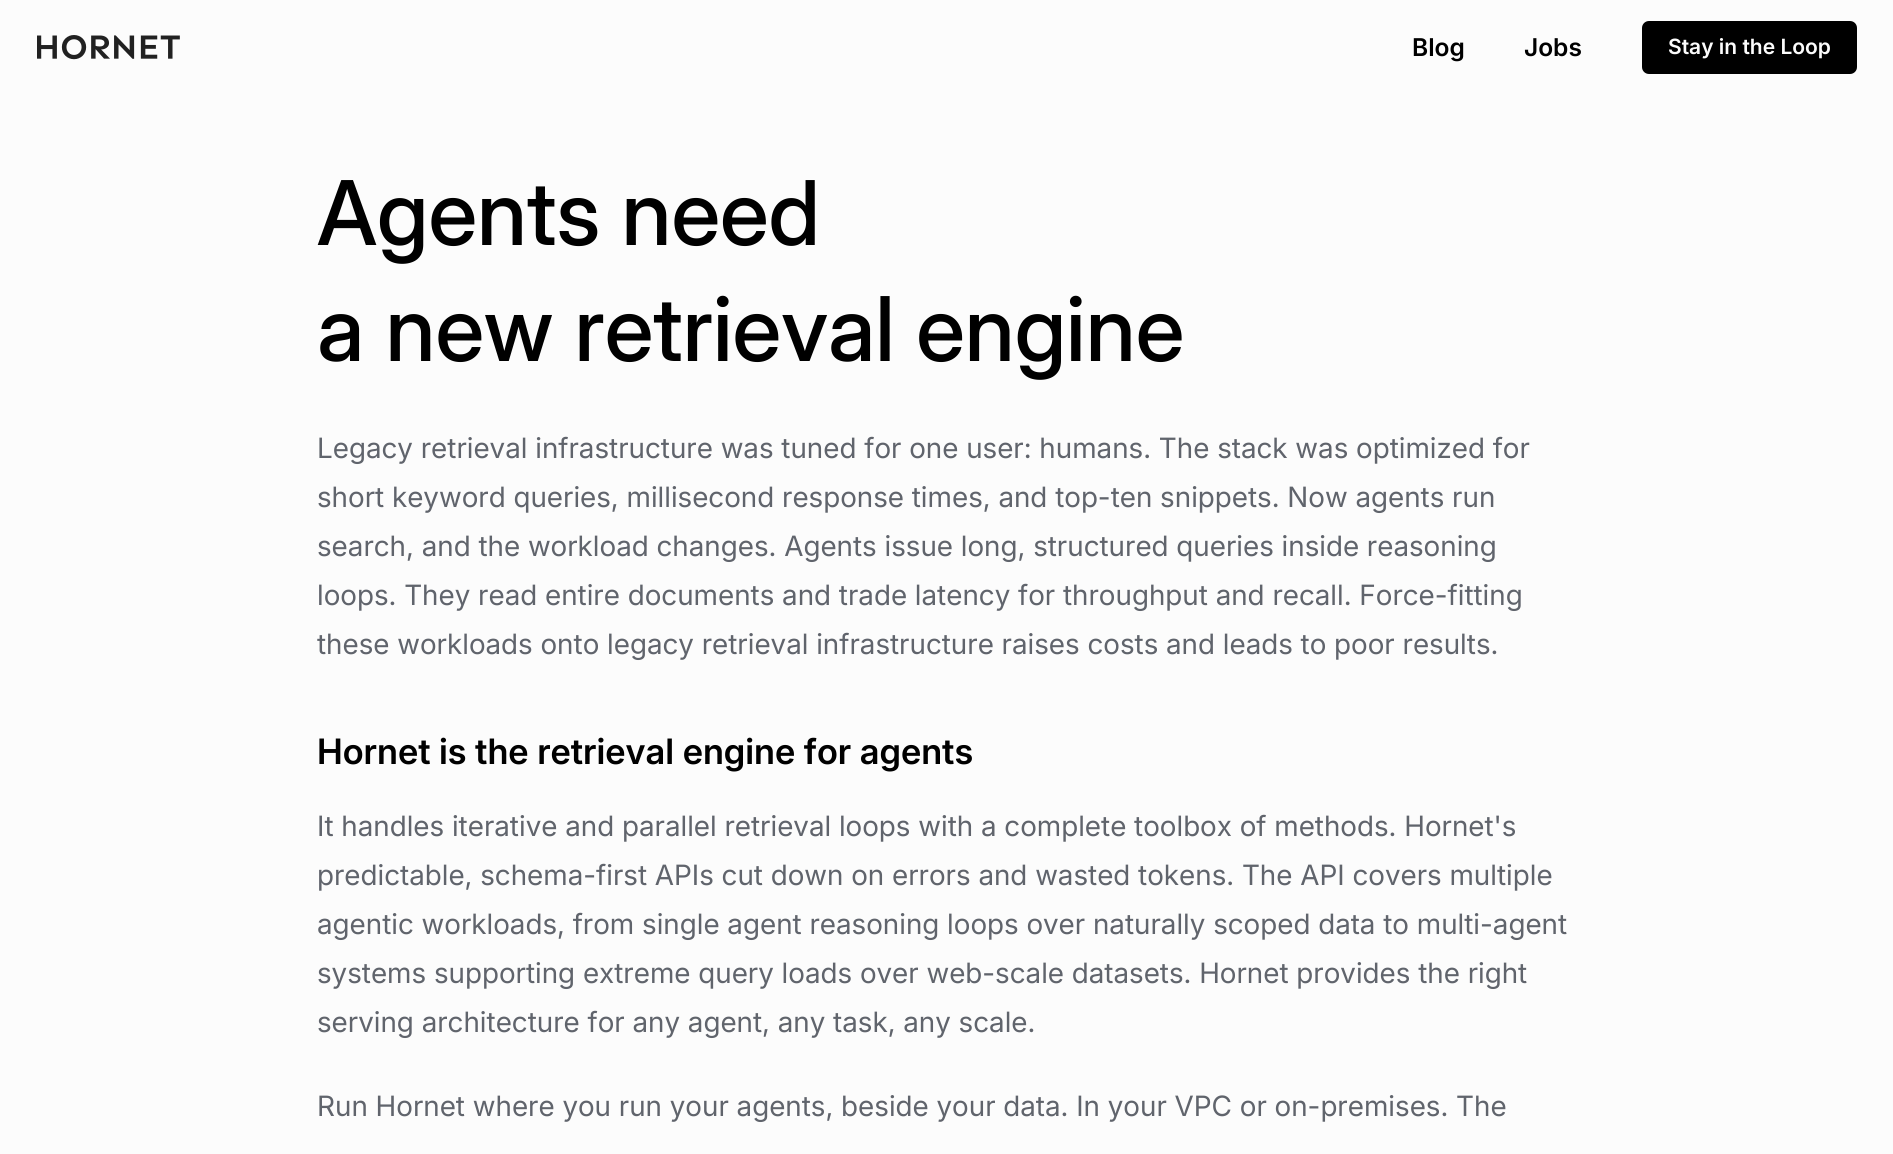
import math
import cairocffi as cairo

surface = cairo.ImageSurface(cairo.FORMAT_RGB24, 1893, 1154)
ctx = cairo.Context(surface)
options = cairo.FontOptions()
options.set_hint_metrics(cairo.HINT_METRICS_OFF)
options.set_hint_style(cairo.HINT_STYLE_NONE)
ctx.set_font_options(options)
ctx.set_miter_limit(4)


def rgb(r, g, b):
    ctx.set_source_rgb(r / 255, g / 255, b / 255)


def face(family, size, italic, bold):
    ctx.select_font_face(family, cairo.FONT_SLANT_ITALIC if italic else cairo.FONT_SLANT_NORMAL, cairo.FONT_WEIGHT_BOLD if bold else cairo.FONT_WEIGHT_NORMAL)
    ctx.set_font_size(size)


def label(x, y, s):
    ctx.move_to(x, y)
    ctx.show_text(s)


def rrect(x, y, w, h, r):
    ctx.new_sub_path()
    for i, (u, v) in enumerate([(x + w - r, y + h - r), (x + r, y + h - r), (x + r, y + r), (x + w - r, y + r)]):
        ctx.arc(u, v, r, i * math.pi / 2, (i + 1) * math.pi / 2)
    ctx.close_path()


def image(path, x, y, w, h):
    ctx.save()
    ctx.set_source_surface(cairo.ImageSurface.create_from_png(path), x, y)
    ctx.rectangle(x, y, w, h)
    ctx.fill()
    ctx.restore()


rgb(252, 252, 252)
ctx.paint()
image('image0.png', 37, 35, 143, 25)
face('Inter SemiBold', 24.5, 0, 0)
rgb(0, 0, 0)
label(1412, 56, 'Blog')
label(1524, 56, 'Jobs')
rrect(1642, 21, 215, 53, 7)
ctx.fill()
face('Inter SemiBold', 21, 0, 0)
rgb(252, 252, 252)
label(1668, 54, 'Stay in the Loop')
face('Inter Medium', 89.25, 0, 0)
rgb(0, 0, 0)
label(317, 245, 'Agents need')
label(317, 361, 'a new retrieval engine')
face('Inter', 28, 0, 0)
rgb(96, 100, 108)
label(317, 458, 'Legacy retrieval infrastructure was tuned for one user: humans. The stack was optimized for')
label(317, 507, 'short keyword queries, millisecond response times, and top-ten snippets. Now agents run')
label(317, 556, 'search, and the workload changes. Agents issue long, structured queries inside reasoning')
label(317, 605, 'loops. They read entire documents and trade latency for throughput and recall. Force-fitting')
label(317, 654, 'these workloads onto legacy retrieval infrastructure raises costs and leads to poor results.')
face('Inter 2 SemiBold', 35, 0, 0)
rgb(0, 0, 0)
label(317, 764, 'Hornet is the retrieval engine for agents')
face('Inter', 28, 0, 0)
rgb(96, 100, 108)
label(317, 836, 'It handles iterative and parallel retrieval loops with a complete toolbox of methods. Hornet\'s')
label(317, 885, 'predictable, schema-first APIs cut down on errors and wasted tokens. The API covers multiple')
label(317, 934, 'agentic workloads, from single agent reasoning loops over naturally scoped data to multi-agent')
label(317, 983, 'systems supporting extreme query loads over web-scale datasets. Hornet provides the right')
label(317, 1032, 'serving architecture for any agent, any task, any scale.')
label(317, 1116, 'Run Hornet where you run your agents, beside your data. In your VPC or on-premises. The')
surface.write_to_png('render.png')
